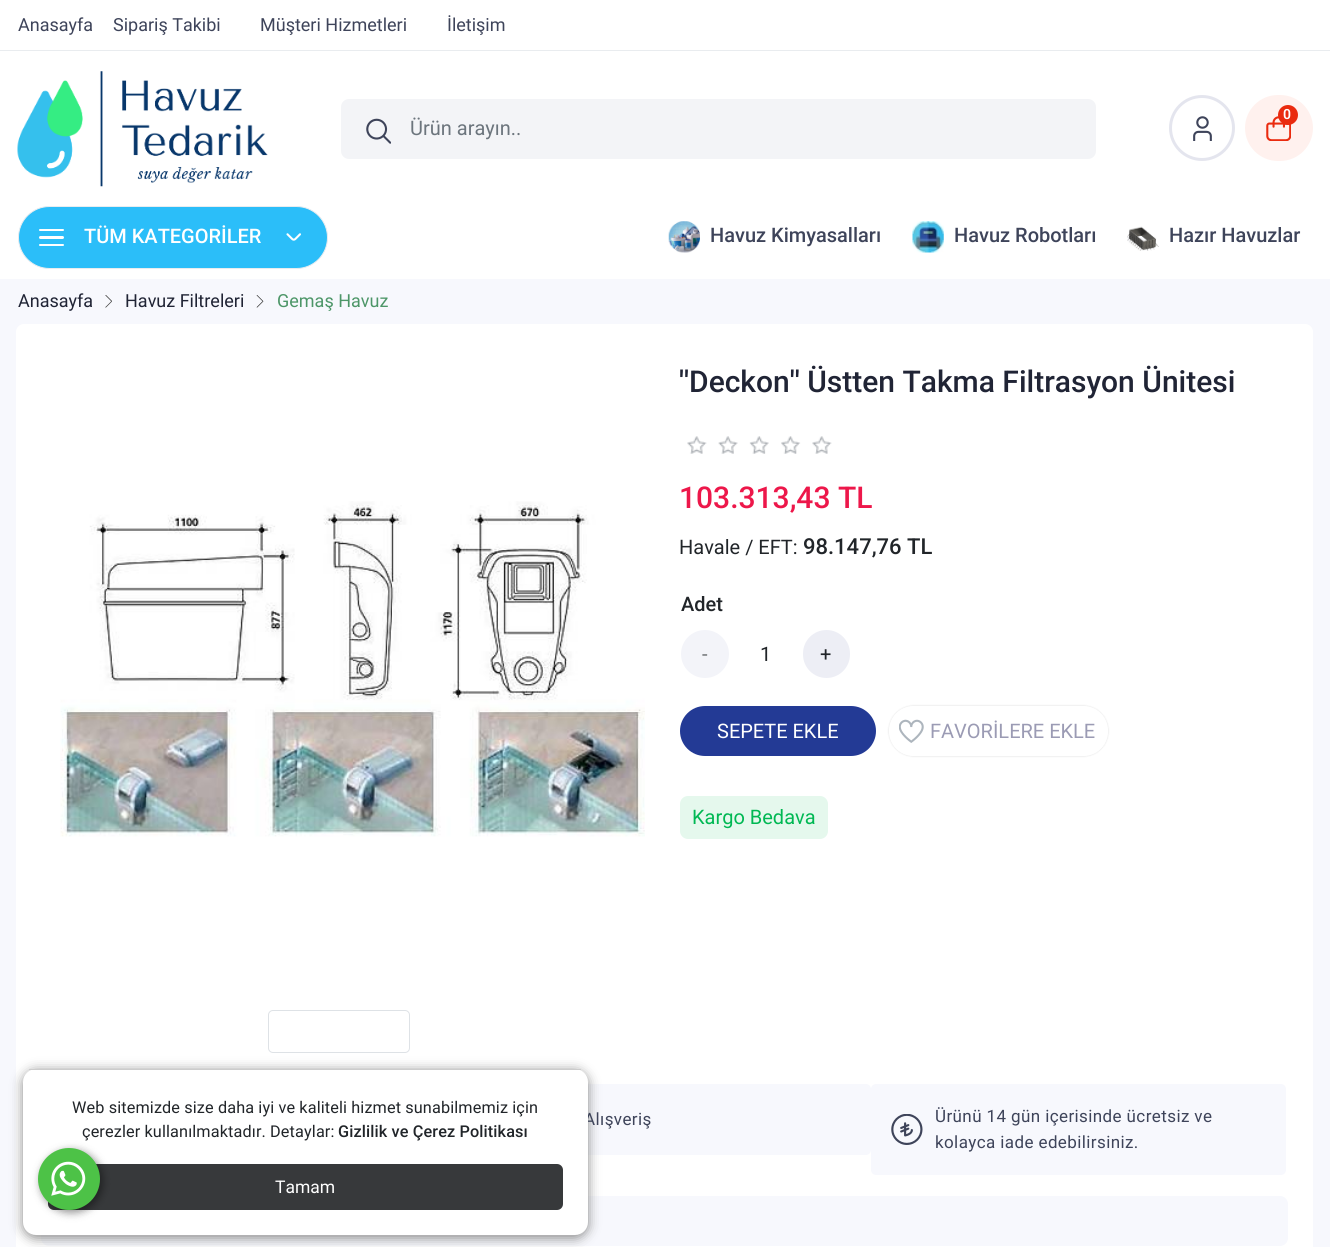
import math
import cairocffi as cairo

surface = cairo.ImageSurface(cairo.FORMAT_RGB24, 1330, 1247)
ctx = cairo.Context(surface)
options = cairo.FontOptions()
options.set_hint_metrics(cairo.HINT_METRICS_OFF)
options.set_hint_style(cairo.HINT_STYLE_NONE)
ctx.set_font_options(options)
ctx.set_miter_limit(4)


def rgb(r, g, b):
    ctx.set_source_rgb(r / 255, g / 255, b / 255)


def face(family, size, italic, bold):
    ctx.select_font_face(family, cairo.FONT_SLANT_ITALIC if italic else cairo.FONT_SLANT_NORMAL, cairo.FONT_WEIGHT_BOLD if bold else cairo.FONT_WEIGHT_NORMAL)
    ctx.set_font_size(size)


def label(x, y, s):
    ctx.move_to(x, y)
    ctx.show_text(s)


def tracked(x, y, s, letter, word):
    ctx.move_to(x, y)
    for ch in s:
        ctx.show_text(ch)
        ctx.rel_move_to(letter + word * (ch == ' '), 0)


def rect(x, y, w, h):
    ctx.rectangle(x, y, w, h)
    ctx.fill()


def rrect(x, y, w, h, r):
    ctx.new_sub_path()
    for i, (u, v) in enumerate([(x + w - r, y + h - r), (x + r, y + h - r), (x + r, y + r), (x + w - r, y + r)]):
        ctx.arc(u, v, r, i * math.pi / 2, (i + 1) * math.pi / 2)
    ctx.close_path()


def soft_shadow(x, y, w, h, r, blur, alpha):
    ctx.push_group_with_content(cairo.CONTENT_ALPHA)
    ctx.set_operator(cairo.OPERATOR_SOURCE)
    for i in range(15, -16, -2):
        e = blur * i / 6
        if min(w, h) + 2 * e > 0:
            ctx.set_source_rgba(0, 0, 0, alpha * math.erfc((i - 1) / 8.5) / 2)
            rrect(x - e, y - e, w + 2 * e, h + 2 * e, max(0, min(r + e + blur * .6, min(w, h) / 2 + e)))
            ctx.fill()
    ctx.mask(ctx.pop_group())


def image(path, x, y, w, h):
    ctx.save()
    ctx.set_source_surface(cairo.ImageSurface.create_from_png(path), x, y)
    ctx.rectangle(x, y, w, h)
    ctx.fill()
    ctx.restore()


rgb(247, 248, 253)
ctx.paint()
rgb(255, 255, 255)
rect(0, 0, 1330, 279)
rgb(233, 236, 239)
rect(0, 50, 1330, 1)
face('Roboto', 18, 0, 0)
rgb(62, 68, 90)
label(18, 31, 'Anasayfa')
label(113, 31, 'Sipariş Takibi')
label(260, 31, 'Müşteri Hizmetleri')
label(447, 31, 'İletişim')
image('image0.png', 17, 71, 251, 116)
ctx.arc(1202, 128, 31.5, 0, 2 * math.pi)
rgb(228, 229, 238)
ctx.set_line_width(3)
ctx.stroke()
image('image1.png', 1193, 116, 19, 25)
rgb(255, 241, 238)
rrect(1245, 95, 68, 66, 33)
ctx.fill()
image('image2.png', 1266, 116, 25, 25)
rgb(234, 43, 15)
ctx.arc(1288, 115, 10, 0, 2 * math.pi)
ctx.fill()
face('Roboto SemiBold', 14, 0, 0)
rgb(255, 255, 255)
label(1283, 119, '0')
rgb(243, 244, 247)
rrect(341, 99, 755, 60, 8)
ctx.fill()
image('image3.png', 366, 118, 25, 26)
face('Roboto', 20, 0, 0)
rgb(108, 117, 125)
label(410, 135, 'Ürün arayın..')
rgb(43, 190, 249)
rrect(18.5, 206.5, 309, 62, 31)
ctx.fill_preserve()
rgb(233, 236, 239)
ctx.set_line_width(1)
ctx.stroke()
rgb(255, 255, 255)
rrect(39, 236, 25, 3, 1.5)
ctx.fill()
rrect(39, 229, 25, 2, 1)
ctx.fill()
rrect(39, 244, 25, 2, 1)
ctx.fill()
face('Roboto Medium', 20, 0, 0)
label(84, 243, 'TÜM KATEGORİLER')
image('image4.png', 286, 233, 15, 8)
image('image5.png', 668, 221, 32, 32)
rgb(62, 68, 90)
label(710, 242, 'Havuz Kimyasalları')
image('image6.png', 912, 221, 32, 32)
label(954, 242, 'Havuz Robotları')
image('image7.png', 1127, 226, 32, 25)
label(1169, 242, 'Hazır Havuzlar')
face('Roboto', 18, 0, 0)
rgb(32, 36, 53)
label(18, 307, 'Anasayfa')
image('image8.png', 105, 295, 7, 13)
label(125, 307, 'Havuz Filtreleri')
image('image9.png', 256, 295, 8, 13)
rgb(77, 150, 104)
label(277, 307, 'Gemaş Havuz')
rgb(255, 255, 255)
rrect(16, 324, 1297, 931, 8)
ctx.fill()
rrect(268.5, 1010.5, 141, 42, 4.5)
rgb(222, 226, 230)
ctx.stroke()
rgb(247, 248, 253)
rrect(458, 1084, 413, 71, 5)
ctx.fill()
rrect(41, 1196, 1247, 50, 8)
ctx.fill()
rgb(136, 136, 136)
soft_shadow(23, 1071, 565, 167, 13, 6, 1)
face('Roboto', 17, 0, 0)
rgb(62, 68, 90)
tracked(584, 1125, 'Alışveriş', 0.4, 0)
rgb(255, 255, 255)
rrect(23, 1069, 565, 166, 13)
ctx.fill()
rgb(204, 204, 204)
rect(29, 1069, 552, 1)
face('Roboto', 16.25, 0, 0)
rgb(33, 37, 41)
tracked(72, 1113, 'Web sitemizde size daha iyi ve kaliteli hizmet sunabilmemiz için', 0.12, 0)
tracked(82, 1137, 'çerezler kullanılmaktadır. Detaylar:', 0.12, 0)
face('Roboto Medium', 16.25, 0, 0)
tracked(338, 1137, 'Gizlilik ve Çerez Politikası', 0.12, 0)
rgb(55, 57, 59)
rrect(48, 1164, 515, 46, 6)
ctx.fill()
face('Roboto', 17.5, 0, 0)
rgb(255, 255, 255)
label(275, 1193, 'Tamam')
image('image10.png', 60, 501, 585, 336)
face('Roboto Medium', 30, 0, 0)
rgb(32, 36, 53)
label(679, 392, '\'\'Deckon\'\' Üstten Takma Filtrasyon Ünitesi')
image('image11.png', 687, 436, 145, 18)
rgb(237, 23, 74)
label(679, 508, '103.313,43 TL')
face('Roboto', 20, 0, 0)
rgb(33, 37, 41)
label(679, 554, 'Havale / EFT:')
face('Roboto Medium', 22, 0, 0)
label(803, 554, '98.147,76 TL')
face('Roboto Medium', 20, 0, 0)
label(681, 611, 'Adet')
rgb(243, 244, 249)
ctx.new_path()
ctx.arc(705, 654, 24, 0, 2 * math.pi)
ctx.fill()
face('Roboto', 20, 0, 0)
rgb(111, 113, 116)
label(702, 661, '-')
rgb(33, 37, 41)
label(760, 661, '1')
rgb(237, 238, 245)
rrect(803, 630, 47, 48, 23.5)
ctx.fill()
rgb(33, 37, 41)
label(820, 661, '+')
rgb(35, 58, 149)
rrect(680, 706, 196, 50, 25)
ctx.fill()
rgb(255, 255, 255)
label(717, 738, 'SEPETE EKLE')
ctx.save()
ctx.set_fill_rule(cairo.FILL_RULE_EVEN_ODD)
ctx.new_path()
ctx.move_to(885, 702)
ctx.line_to(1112, 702)
ctx.line_to(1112, 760)
ctx.line_to(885, 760)
ctx.close_path()
ctx.move_to(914, 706)
ctx.line_to(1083, 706)
ctx.curve_to(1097, 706, 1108, 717, 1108, 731)
ctx.curve_to(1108, 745, 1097, 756, 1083, 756)
ctx.line_to(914, 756)
ctx.curve_to(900, 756, 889, 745, 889, 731)
ctx.curve_to(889, 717, 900, 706, 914, 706)
ctx.close_path()
ctx.clip()
rgb(0, 0, 0)
soft_shadow(889, 706, 219, 50, 25, 1, 0.15)
ctx.restore()
image('image12.png', 899, 719, 25, 24)
rgb(155, 155, 180)
label(930, 738, 'FAVORİLERE EKLE')
rgb(229, 248, 237)
rrect(680, 796, 148, 43, 8)
ctx.fill()
rgb(0, 184, 83)
label(692, 824, 'Kargo Bedava')
rgb(247, 248, 253)
rrect(871, 1084, 415, 91, 5)
ctx.fill()
image('image13.png', 891, 1114, 32, 31)
face('Roboto', 17, 0, 0)
rgb(62, 68, 90)
tracked(935, 1122, 'Ürünü 14 gün içerisinde ücretsiz ve', 0.4, 0)
tracked(935, 1148, 'kolayca iade edebilirsiniz.', 0.4, 0)
rgb(0, 0, 0)
soft_shadow(40, 1150, 63, 63, 31.5, 4, 0.4)
rgb(77, 194, 71)
ctx.arc(69, 1179, 31, 0, 2 * math.pi)
ctx.fill()
image('image14.png', 51, 1161, 35, 35)
surface.write_to_png('render.png')
